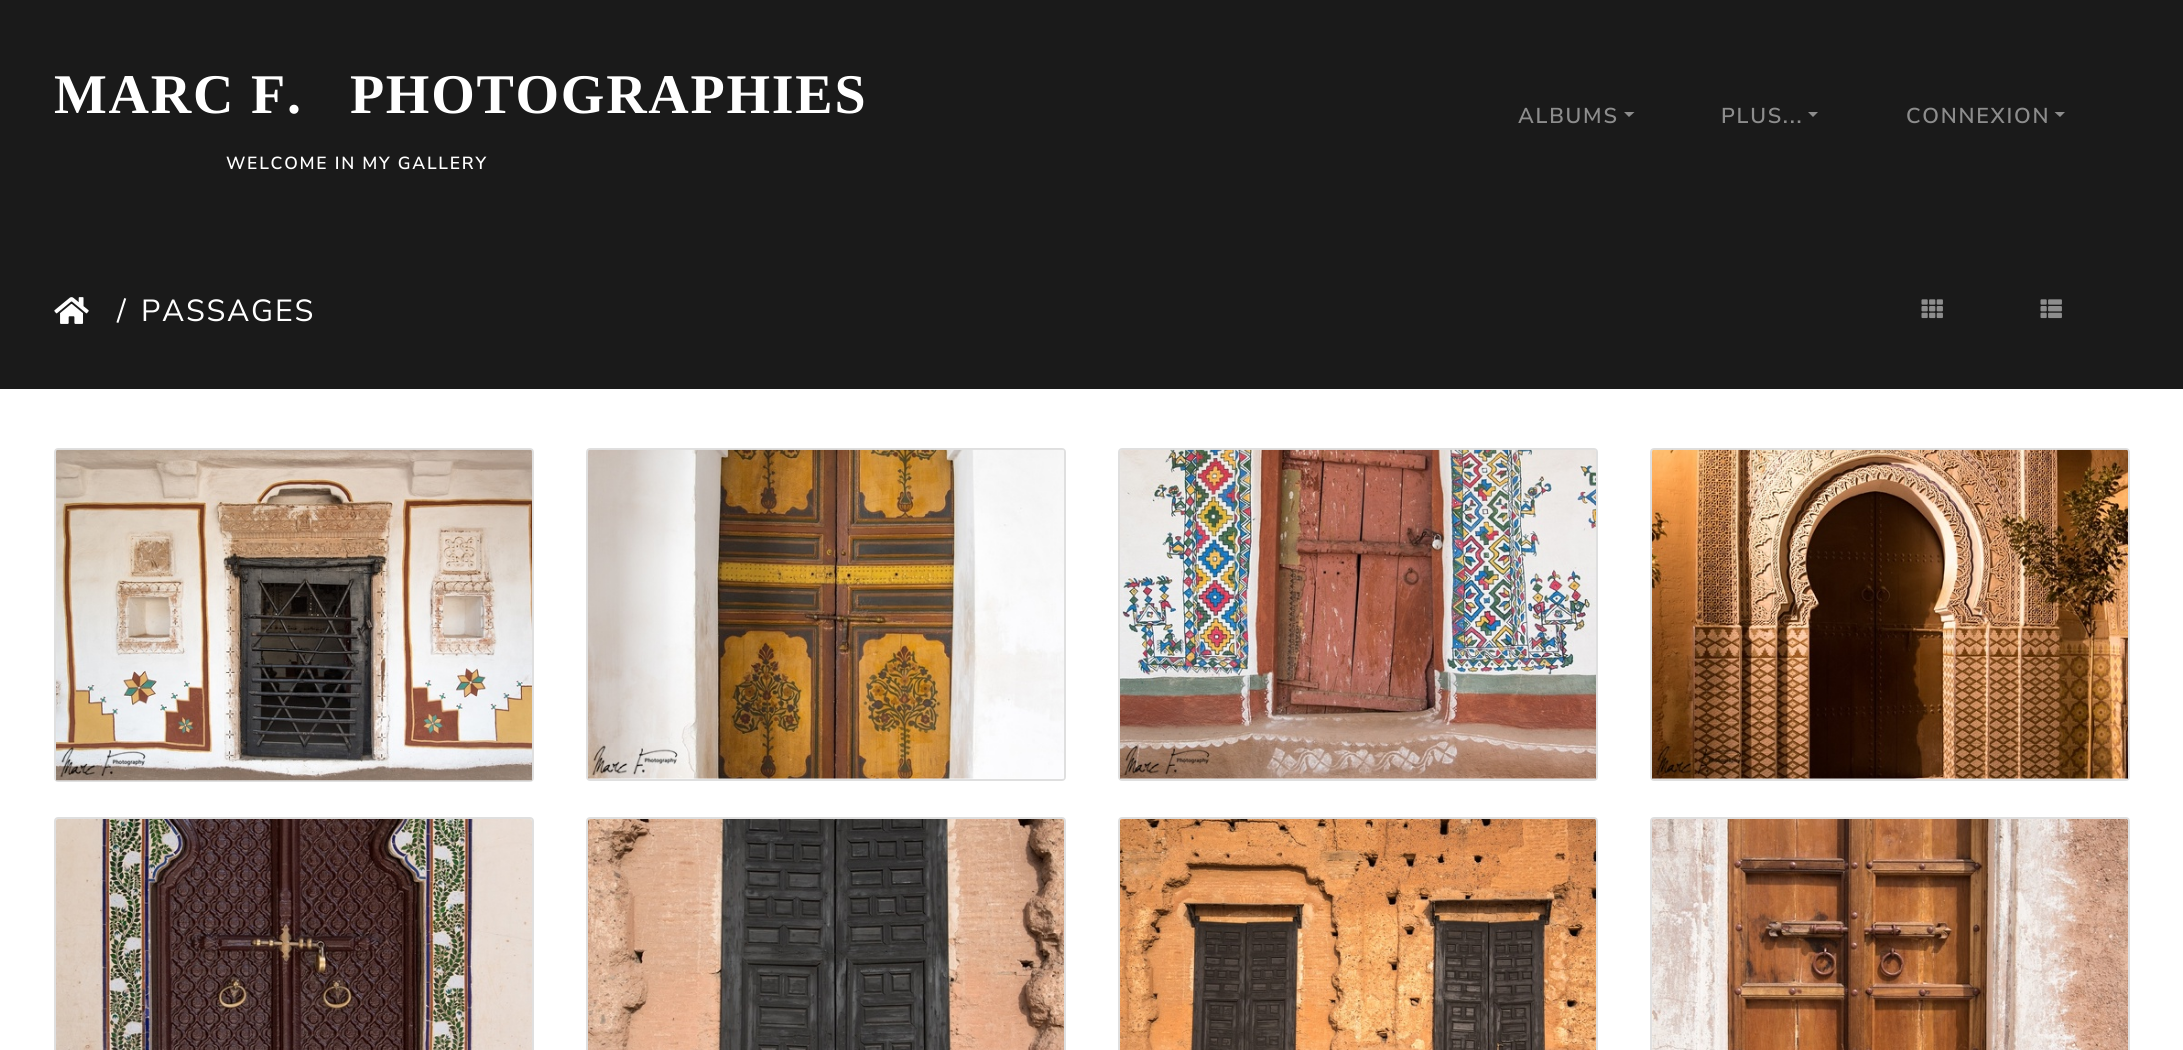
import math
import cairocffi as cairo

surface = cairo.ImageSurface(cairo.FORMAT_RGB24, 2183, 1050)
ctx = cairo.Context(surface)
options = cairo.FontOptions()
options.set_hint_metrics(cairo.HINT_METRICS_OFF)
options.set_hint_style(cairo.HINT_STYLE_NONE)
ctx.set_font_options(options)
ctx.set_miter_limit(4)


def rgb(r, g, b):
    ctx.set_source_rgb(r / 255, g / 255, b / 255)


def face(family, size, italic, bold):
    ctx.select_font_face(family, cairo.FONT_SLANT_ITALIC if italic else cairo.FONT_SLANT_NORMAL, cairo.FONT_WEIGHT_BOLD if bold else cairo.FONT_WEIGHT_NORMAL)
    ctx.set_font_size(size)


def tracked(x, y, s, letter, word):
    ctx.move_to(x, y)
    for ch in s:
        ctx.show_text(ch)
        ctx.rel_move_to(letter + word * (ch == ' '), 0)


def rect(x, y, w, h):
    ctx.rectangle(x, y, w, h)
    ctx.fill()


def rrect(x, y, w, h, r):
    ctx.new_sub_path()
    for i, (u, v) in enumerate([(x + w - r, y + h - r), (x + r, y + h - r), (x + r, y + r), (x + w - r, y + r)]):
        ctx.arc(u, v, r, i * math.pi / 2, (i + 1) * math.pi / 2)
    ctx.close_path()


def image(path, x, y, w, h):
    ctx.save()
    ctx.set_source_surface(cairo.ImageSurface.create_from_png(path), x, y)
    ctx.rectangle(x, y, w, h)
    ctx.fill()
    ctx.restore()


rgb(255, 255, 255)
ctx.paint()
rgb(26, 26, 26)
rect(0, 0, 2183, 389)
face('Liberation Serif', 56, 0, 1)
rgb(255, 255, 255)
tracked(54, 113, 'MARC F.   PHOTOGRAPHIES', 1.75, 0)
face('Nunito Sans SemiBold', 17.5, 0, 0)
tracked(226, 169, 'WELCOME IN MY GALLERY', 1.75, 0)
face('Nunito Sans SemiBold', 21.5, 0, 0)
rgb(141, 141, 141)
tracked(1518, 123, 'ALBUMS', 1.75, 0)
ctx.new_path()
ctx.move_to(1624, 112)
ctx.line_to(1634.5, 112)
ctx.line_to(1629, 117)
ctx.close_path()
ctx.fill()
tracked(1721, 123, 'PLUS...', 1.75, 0)
ctx.new_path()
ctx.move_to(1808, 112)
ctx.line_to(1818, 112)
ctx.line_to(1813, 117)
ctx.close_path()
ctx.fill()
tracked(1906, 123, 'CONNEXION', 1.75, 0)
ctx.new_path()
ctx.move_to(2054.5, 112)
ctx.line_to(2065, 112)
ctx.line_to(2060, 117)
ctx.close_path()
ctx.fill()
image('image0.png', 54, 297, 35, 27)
face('Nunito Sans', 30.5, 0, 0)
rgb(255, 255, 255)
tracked(117, 321, '/', 1.75, 0)
tracked(141, 321, 'PASSAGES', 1.75, 0)
image('image1.png', 1921, 299, 22, 20)
image('image2.png', 2040, 299, 22, 20)
rrect(55, 449, 478, 332, 3)
rgb(223, 223, 223)
ctx.stroke()
image('image3.png', 56, 449, 476, 332)
rrect(587, 449, 478, 331, 3)
ctx.stroke()
image('image4.png', 588, 449, 476, 330)
rrect(1119, 449, 478, 331, 3)
ctx.stroke()
image('image5.png', 1120, 449, 476, 330)
rrect(1651, 449, 478, 331, 3)
ctx.stroke()
image('image6.png', 1652, 449, 476, 330)
rrect(55, 818, 478, 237, 3)
ctx.stroke()
image('image7.png', 56, 819, 476, 231)
rrect(587, 818, 478, 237, 3)
ctx.stroke()
image('image8.png', 588, 819, 476, 231)
rrect(1119, 818, 478, 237, 3)
ctx.stroke()
image('image9.png', 1120, 819, 476, 231)
rrect(1651, 818, 478, 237, 3)
ctx.stroke()
image('image10.png', 1652, 819, 476, 231)
surface.write_to_png('render.png')
